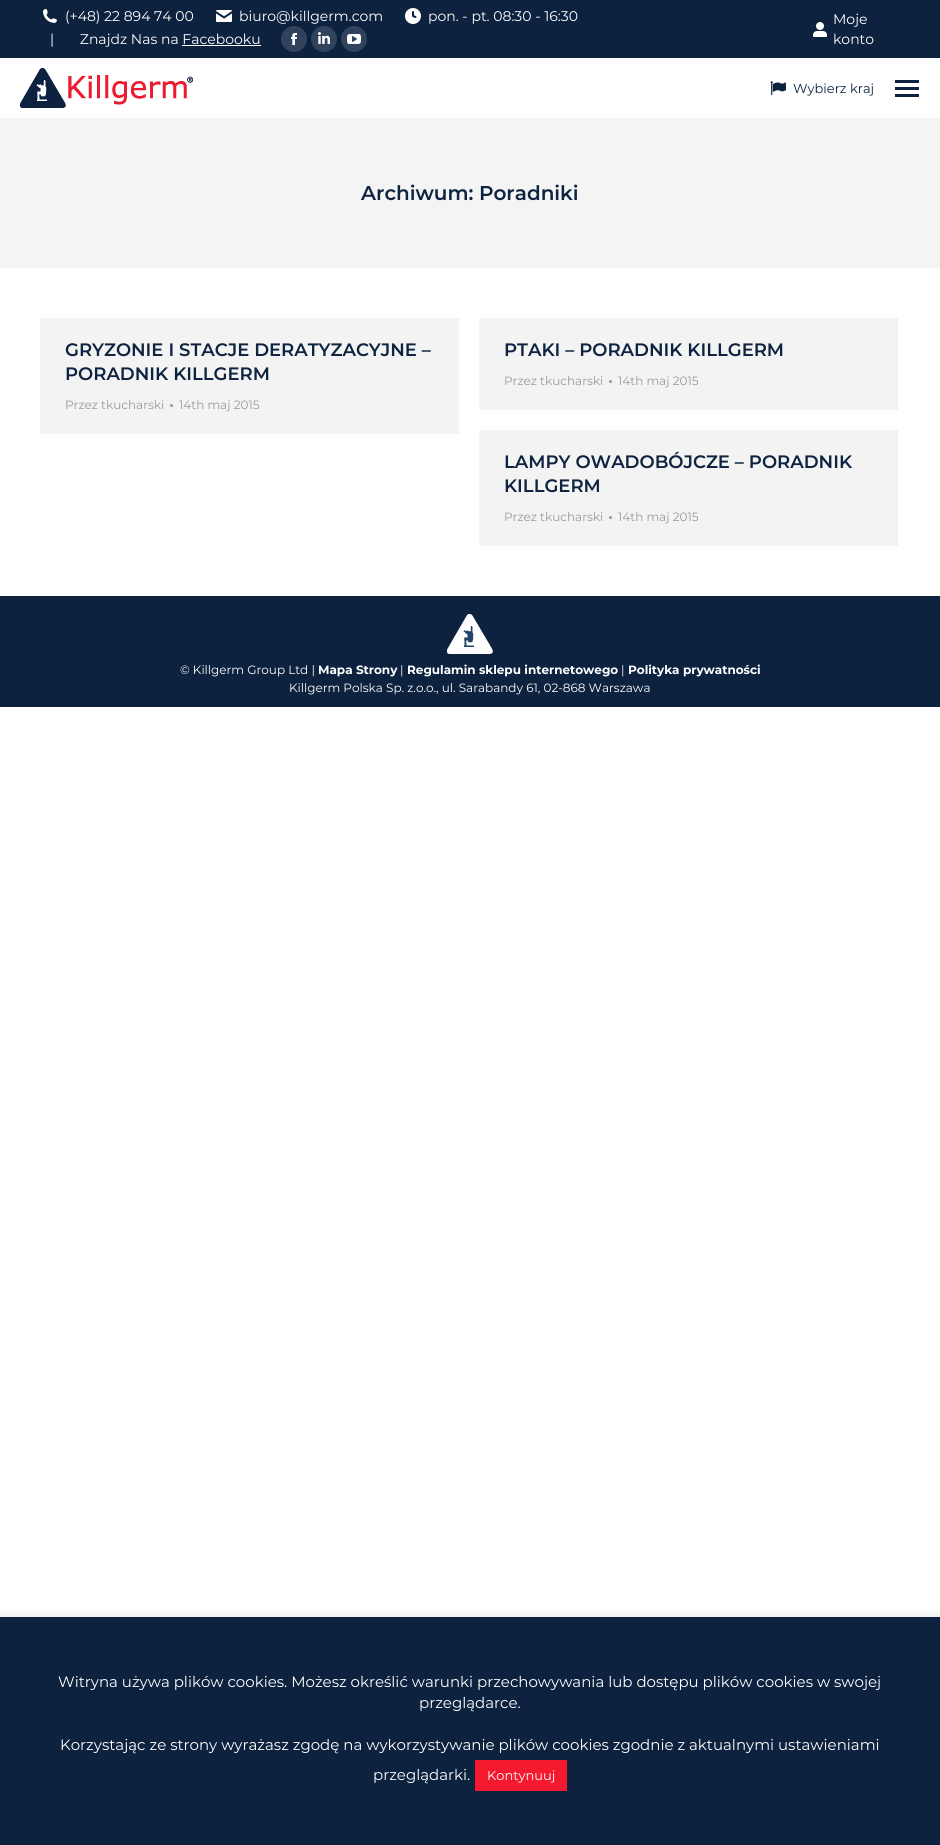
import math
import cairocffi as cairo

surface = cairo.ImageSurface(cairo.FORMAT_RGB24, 940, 1845)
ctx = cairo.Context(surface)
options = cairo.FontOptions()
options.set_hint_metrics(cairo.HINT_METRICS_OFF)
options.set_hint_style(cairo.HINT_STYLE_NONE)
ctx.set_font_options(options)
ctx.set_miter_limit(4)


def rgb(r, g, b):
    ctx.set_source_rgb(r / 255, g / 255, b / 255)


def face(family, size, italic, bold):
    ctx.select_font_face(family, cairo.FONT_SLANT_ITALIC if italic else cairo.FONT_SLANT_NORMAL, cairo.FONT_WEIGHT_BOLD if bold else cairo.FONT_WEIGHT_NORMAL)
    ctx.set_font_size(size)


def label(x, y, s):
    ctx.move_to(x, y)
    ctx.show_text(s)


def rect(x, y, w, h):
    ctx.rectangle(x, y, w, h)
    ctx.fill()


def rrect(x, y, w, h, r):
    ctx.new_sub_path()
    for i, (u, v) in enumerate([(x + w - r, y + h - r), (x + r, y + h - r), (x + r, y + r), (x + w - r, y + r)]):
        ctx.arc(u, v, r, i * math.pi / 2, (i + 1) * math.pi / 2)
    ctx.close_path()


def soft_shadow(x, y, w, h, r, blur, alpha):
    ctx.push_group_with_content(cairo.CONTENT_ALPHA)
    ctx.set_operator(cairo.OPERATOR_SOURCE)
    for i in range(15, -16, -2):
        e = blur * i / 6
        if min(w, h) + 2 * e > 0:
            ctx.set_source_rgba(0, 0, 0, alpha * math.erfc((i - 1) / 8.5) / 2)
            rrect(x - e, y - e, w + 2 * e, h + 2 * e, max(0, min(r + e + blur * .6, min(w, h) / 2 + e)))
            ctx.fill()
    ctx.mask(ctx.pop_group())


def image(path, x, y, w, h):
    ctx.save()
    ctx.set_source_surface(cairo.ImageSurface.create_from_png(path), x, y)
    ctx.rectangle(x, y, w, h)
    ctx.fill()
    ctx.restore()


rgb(255, 255, 255)
ctx.paint()
rgb(13, 34, 63)
rect(0, 0, 940, 58)
image('image0.png', 43, 9, 14, 14)
face('Montserrat', 14, 0, 0)
rgb(255, 255, 255)
label(65, 21, '(+48) 22 894 74 00')
image('image1.png', 216, 10, 16, 12)
label(239, 21, 'biuro@killgerm.com')
image('image2.png', 405, 8, 16, 16)
label(428, 21, 'pon. - pt. 08:30 - 16:30')
label(50, 44, '|       Znajdz Nas na Facebooku')
rect(182, 45, 79, 1)
rgb(49, 67, 92)
ctx.new_path()
ctx.arc(294, 39, 13, 0, 2 * math.pi)
ctx.fill()
image('image3.png', 291, 33, 6, 12)
ctx.arc(324, 39, 13, 0, 2 * math.pi)
ctx.fill()
image('image4.png', 318, 32, 12, 12)
ctx.arc(354, 39, 13, 0, 2 * math.pi)
ctx.fill()
image('image5.png', 347, 34, 14, 10)
rgb(255, 255, 255)
label(833, 24, 'Moje')
image('image6.png', 813, 22, 14, 15)
label(833, 44, 'konto')
image('image7.png', 20, 68, 173, 40)
image('image8.png', 770, 81, 16, 14)
face('Montserrat', 13, 0, 0)
rgb(13, 35, 64)
label(793, 93, 'Wybierz kraj')
rgb(13, 34, 63)
rect(895, 80, 24, 3)
rect(895, 87, 24, 3)
rect(895, 94, 24, 3)
rgb(244, 244, 244)
rect(0, 118, 940, 150)
face('Montserrat SemiBold', 20, 0, 0)
rgb(13, 35, 64)
label(361, 200, 'Archiwum: Poradniki')
rgb(243, 243, 243)
rect(40, 318, 419, 116)
face('Montserrat SemiBold', 18, 0, 0)
rgb(13, 35, 64)
label(65, 356, 'GRYZONIE I STACJE DERATYZACYJNE –')
label(65, 380, 'PORADNIK KILLGERM')
face('Montserrat', 12, 0, 0)
rgb(153, 153, 153)
label(65, 409, 'Przez tkucharski')
ctx.new_path()
ctx.arc(171.5, 405.5, 1.5, 0, 2 * math.pi)
ctx.fill()
label(179, 409, '14th maj 2015')
rgb(243, 243, 243)
rect(479, 318, 419, 92)
face('Montserrat SemiBold', 18, 0, 0)
rgb(13, 35, 64)
label(504, 356, 'PTAKI – PORADNIK KILLGERM')
face('Montserrat', 12, 0, 0)
rgb(153, 153, 153)
label(504, 385, 'Przez tkucharski')
ctx.new_path()
ctx.arc(610.5, 381.5, 1.5, 0, 2 * math.pi)
ctx.fill()
label(618, 385, '14th maj 2015')
rgb(243, 243, 243)
rect(479, 430, 419, 116)
face('Montserrat SemiBold', 18, 0, 0)
rgb(13, 35, 64)
label(504, 468, 'LAMPY OWADOBÓJCZE – PORADNIK')
label(504, 492, 'KILLGERM')
face('Montserrat', 12, 0, 0)
rgb(153, 153, 153)
label(504, 521, 'Przez tkucharski')
ctx.new_path()
ctx.arc(610.5, 517.5, 1.5, 0, 2 * math.pi)
ctx.fill()
label(618, 521, '14th maj 2015')
rgb(12, 34, 63)
rect(0, 596, 940, 111)
image('image9.png', 447, 614, 46, 40)
rgb(255, 255, 255)
label(180, 674, '© Killgerm Group Ltd |')
face('Montserrat', 12, 0, 1)
label(318, 674, 'Mapa Strony')
face('Montserrat', 12, 0, 0)
label(400, 674, '|')
face('Montserrat', 12, 0, 1)
label(407, 674, 'Regulamin sklepu internetowego')
face('Montserrat', 12, 0, 0)
label(621, 674, '|')
face('Montserrat', 12, 0, 1)
label(628, 674, 'Polityka prywatności')
face('Montserrat', 12, 0, 0)
label(289, 692, 'Killgerm Polska Sp. z.o.o., ul. Sarabandy 61, 02-868 Warszawa')
rgb(172, 171, 171)
soft_shadow(0, 1616, 940, 228, 0, 5, 0.3)
rgb(13, 34, 63)
rect(0, 1617, 940, 228)
face('Montserrat', 15, 0, 0)
rgb(255, 255, 255)
label(58, 1687, 'Witryna używa plików cookies. Możesz określić warunki przechowywania lub dostępu plików cookies w swojej')
label(419, 1708, 'przeglądarce.')
label(60, 1750, 'Korzystając ze strony wyrażasz zgodę na wykorzystywanie plików cookies zgodnie z aktualnymi ustawieniami')
label(373, 1780, 'przeglądarki.')
rgb(244, 25, 47)
rect(475, 1760, 92, 31)
face('Montserrat', 13, 0, 0)
rgb(255, 255, 255)
label(487, 1780, 'Kontynuuj')
surface.write_to_png('render.png')
